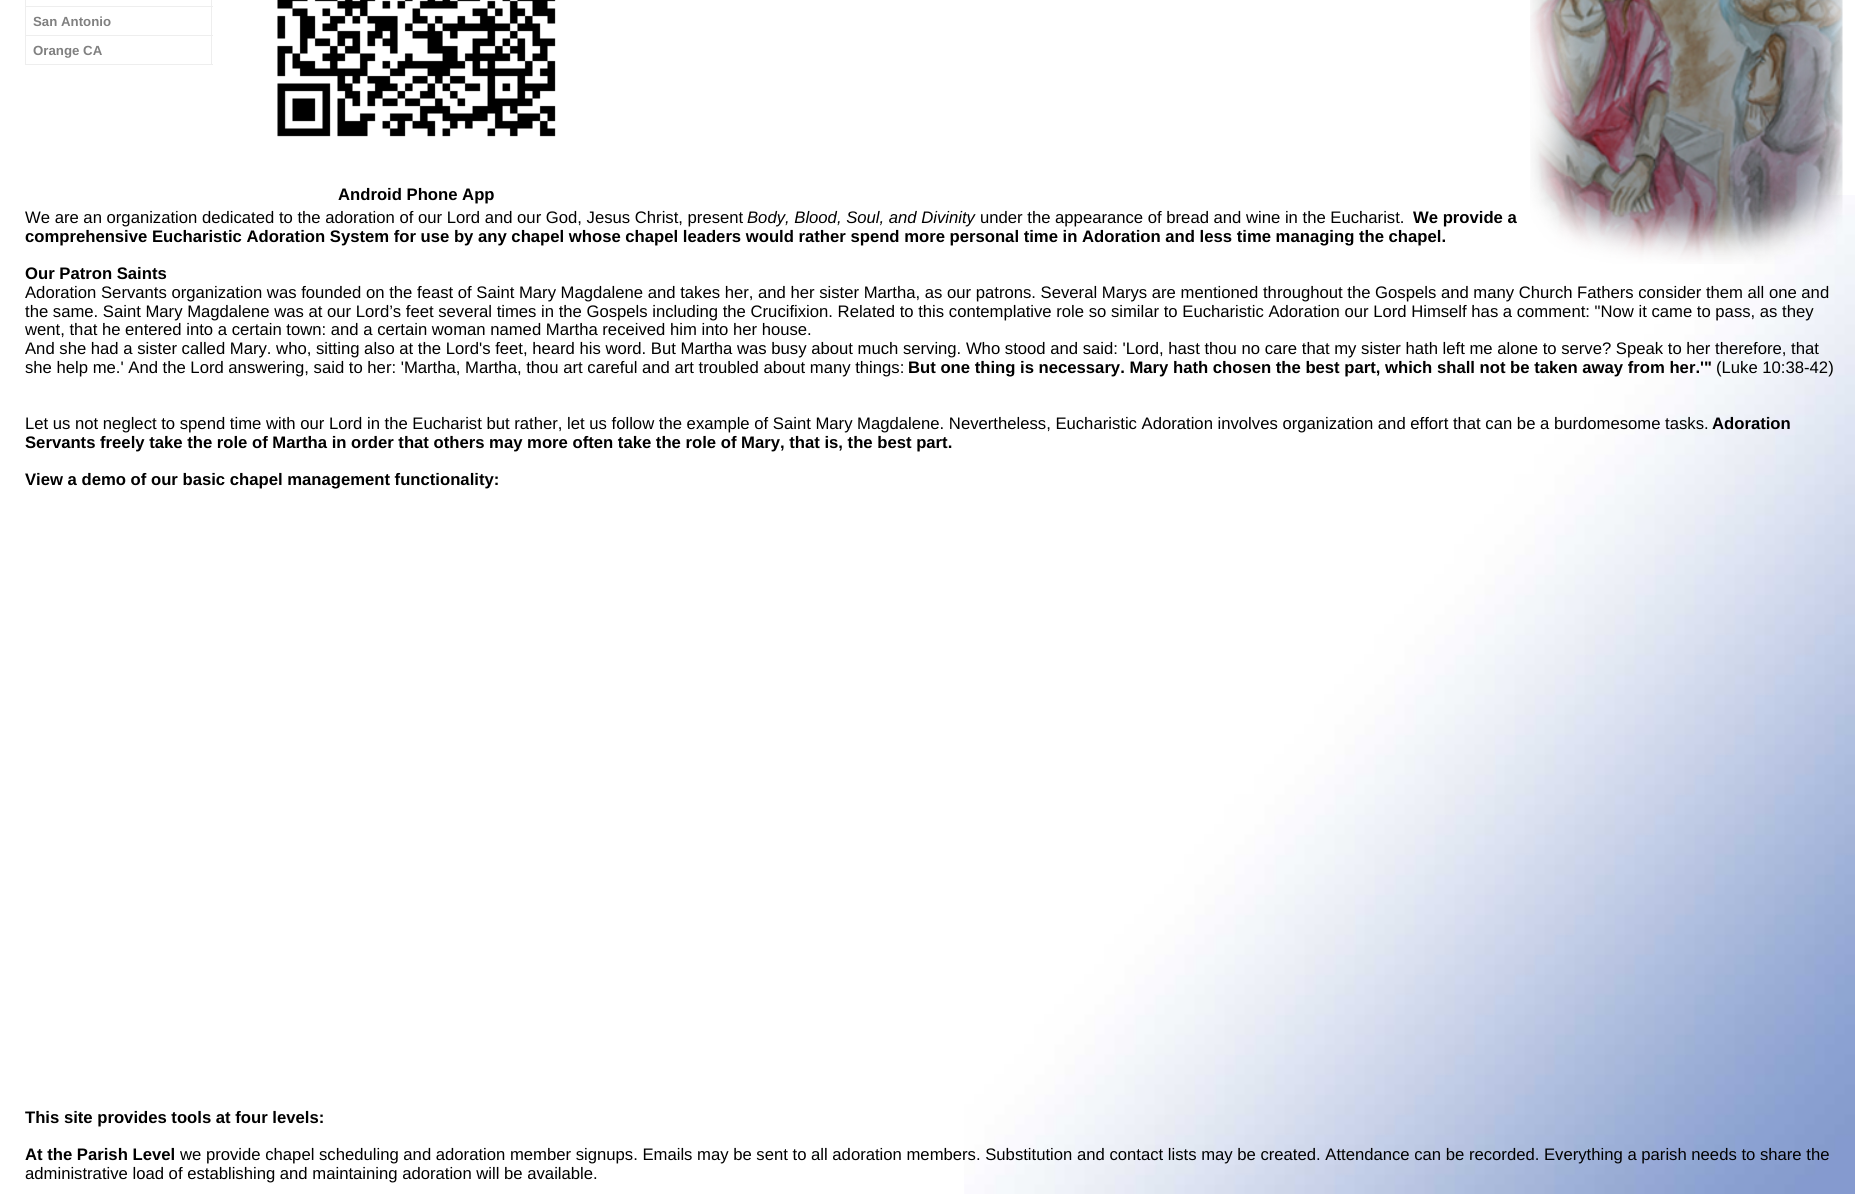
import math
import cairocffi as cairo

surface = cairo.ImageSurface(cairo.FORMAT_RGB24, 1855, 1194)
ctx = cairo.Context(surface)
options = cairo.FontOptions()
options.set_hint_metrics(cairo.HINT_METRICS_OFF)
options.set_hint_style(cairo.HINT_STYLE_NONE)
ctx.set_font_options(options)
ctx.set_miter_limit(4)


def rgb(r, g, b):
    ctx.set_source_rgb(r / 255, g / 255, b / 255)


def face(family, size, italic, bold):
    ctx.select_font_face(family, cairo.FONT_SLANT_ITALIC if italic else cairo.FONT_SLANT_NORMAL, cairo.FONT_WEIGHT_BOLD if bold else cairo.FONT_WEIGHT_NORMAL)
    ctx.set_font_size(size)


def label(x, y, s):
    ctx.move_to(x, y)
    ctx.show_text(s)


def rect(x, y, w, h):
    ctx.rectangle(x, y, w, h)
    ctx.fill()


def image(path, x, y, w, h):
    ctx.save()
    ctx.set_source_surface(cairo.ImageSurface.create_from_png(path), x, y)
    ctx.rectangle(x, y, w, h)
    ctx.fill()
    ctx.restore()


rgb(255, 255, 255)
ctx.paint()
image('image0.png', 964, 195, 891, 999)
rgb(238, 238, 238)
rect(211, 0, 1, 65)
rect(25, 64, 188, 1)
rect(25, 0, 1, 65)
rect(25, 6, 188, 1)
rect(25, 35, 188, 1)
face('Liberation Sans', 13.25, 0, 1)
rgb(128, 128, 128)
label(33, 26, 'San Antonio')
label(33, 55, 'Orange CA')
image('image1.png', 277, 0, 279, 137)
face('Liberation Sans', 16.67, 0, 1)
rgb(0, 0, 0)
label(338, 200, 'Android Phone App')
image('image2.png', 1530, 0, 313, 264)
face('Liberation Sans', 16.67, 0, 0)
label(25, 223, 'We are an organization dedicated to the adoration of our Lord and our God, Jesus Christ, present')
face('Liberation Sans', 16.67, 1, 0)
label(747, 223, 'Body, Blood, Soul, and Divinity')
face('Liberation Sans', 16.67, 0, 0)
label(980, 223, 'under the appearance of bread and wine in the Eucharist.')
face('Liberation Sans', 16.67, 0, 1)
label(1413, 223, 'We provide a')
label(25, 242, 'comprehensive Eucharistic Adoration System for use by any chapel whose chapel leaders would rather spend more personal time in Adoration and less time managing the chapel.')
label(25, 279, 'Our Patron Saints')
face('Liberation Sans', 16.67, 0, 0)
label(25, 298, 'Adoration Servants organization was founded on the feast of Saint Mary Magdalene and takes her, and her sister Martha, as our patrons. Several Marys are mentioned throughout the Gospels and many Church Fathers consider them all one and')
label(25, 317, 'the same. Saint Mary Magdalene was at our Lord’s feet several times in the Gospels including the Crucifixion. Related to this contemplative role so similar to Eucharistic Adoration our Lord Himself has a comment: "Now it came to pass, as they')
label(25, 335, 'went, that he entered into a certain town: and a certain woman named Martha received him into her house.')
label(25, 354, 'And she had a sister called Mary. who, sitting also at the Lord\'s feet, heard his word. But Martha was busy about much serving. Who stood and said: \'Lord, hast thou no care that my sister hath left me alone to serve? Speak to her therefore, that')
label(25, 373, 'she help me.\' And the Lord answering, said to her: \'Martha, Martha, thou art careful and art troubled about many things:')
face('Liberation Sans', 16.67, 0, 1)
label(908, 373, 'But one thing is necessary. Mary hath chosen the best part, which shall not be taken away from her.\'"')
face('Liberation Sans', 16.67, 0, 0)
label(1716, 373, '(Luke 10:38-42)')
label(25, 429, 'Let us not neglect to spend time with our Lord in the Eucharist but rather, let us follow the example of Saint Mary Magdalene. Nevertheless, Eucharistic Adoration involves organization and effort that can be a burdomesome tasks.')
face('Liberation Sans', 16.67, 0, 1)
label(1712, 429, 'Adoration')
label(25, 448, 'Servants freely take the role of Martha in order that others may more often take the role of Mary, that is, the best part.')
label(25, 485, 'View a demo of our basic chapel management functionality:')
label(25, 1123, 'This site provides tools at four levels:')
label(25, 1160, 'At the Parish Level')
face('Liberation Sans', 16.67, 0, 0)
label(180, 1160, 'we provide chapel scheduling and adoration member signups. Emails may be sent to all adoration members. Substitution and contact lists may be created. Attendance can be recorded. Everything a parish needs to share the')
label(25, 1179, 'administrative load of establishing and maintaining adoration will be available.')
surface.write_to_png('render.png')
